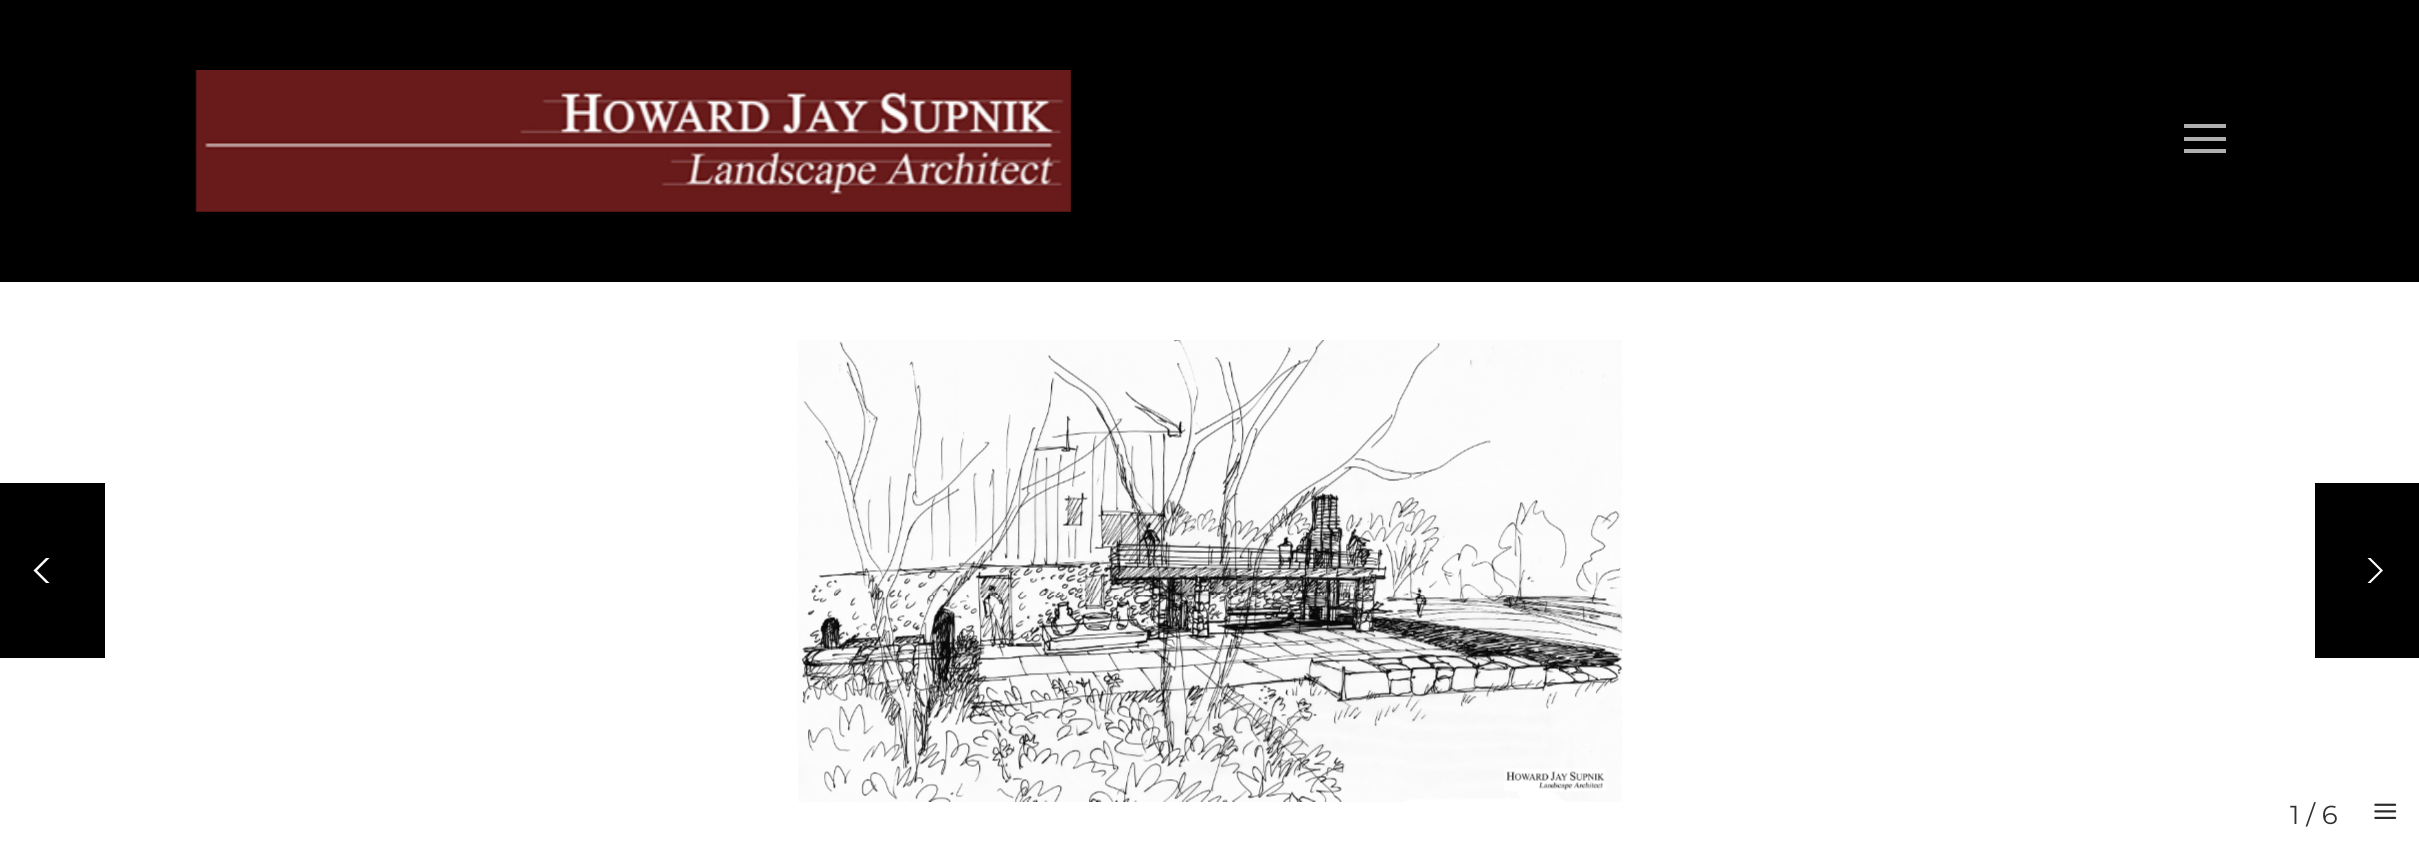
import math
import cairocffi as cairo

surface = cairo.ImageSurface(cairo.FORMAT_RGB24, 2419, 858)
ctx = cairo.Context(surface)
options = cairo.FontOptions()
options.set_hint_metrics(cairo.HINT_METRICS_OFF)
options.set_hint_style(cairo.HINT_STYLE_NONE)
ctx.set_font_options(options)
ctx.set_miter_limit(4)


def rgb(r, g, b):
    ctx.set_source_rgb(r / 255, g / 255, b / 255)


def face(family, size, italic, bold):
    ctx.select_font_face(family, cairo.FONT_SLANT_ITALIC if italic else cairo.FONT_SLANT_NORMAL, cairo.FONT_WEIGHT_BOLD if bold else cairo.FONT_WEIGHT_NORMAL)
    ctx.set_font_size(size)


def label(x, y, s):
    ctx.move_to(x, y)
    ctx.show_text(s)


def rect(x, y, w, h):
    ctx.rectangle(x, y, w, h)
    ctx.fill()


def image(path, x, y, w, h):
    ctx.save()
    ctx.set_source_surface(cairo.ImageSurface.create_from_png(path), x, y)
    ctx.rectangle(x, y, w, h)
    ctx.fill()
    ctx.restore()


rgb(0, 0, 0)
ctx.paint()
image('image0.png', 195, 70, 876, 142)
rgb(175, 175, 175)
rect(2184, 124, 42, 4)
rect(2184, 137, 42, 4)
rect(2184, 149, 42, 4)
rgb(255, 255, 255)
rect(0, 282, 2419, 576)
rgb(0, 0, 0)
rect(0, 483, 105, 175)
rgb(255, 255, 255)
ctx.new_path()
ctx.move_to(33.5, 570.5)
ctx.line_to(46, 583)
ctx.line_to(49.5, 583)
ctx.line_to(37, 570.5)
ctx.line_to(49.5, 558)
ctx.line_to(46, 558)
ctx.close_path()
ctx.fill()
image('image1.png', 798, 340, 825, 462)
rgb(0, 0, 0)
rect(2315, 483, 104, 175)
rgb(255, 255, 255)
ctx.new_path()
ctx.move_to(2383, 570.5)
ctx.line_to(2370.5, 558)
ctx.line_to(2367.5, 558)
ctx.line_to(2380, 570.5)
ctx.line_to(2367.5, 583)
ctx.line_to(2370.5, 583)
ctx.close_path()
ctx.fill()
face('Montserrat Thin', 26, 0, 0)
rgb(48, 49, 50)
label(2290, 824, '1 / 6')
image('image2.png', 2374, 803, 23, 16)
surface.write_to_png('render.png')
